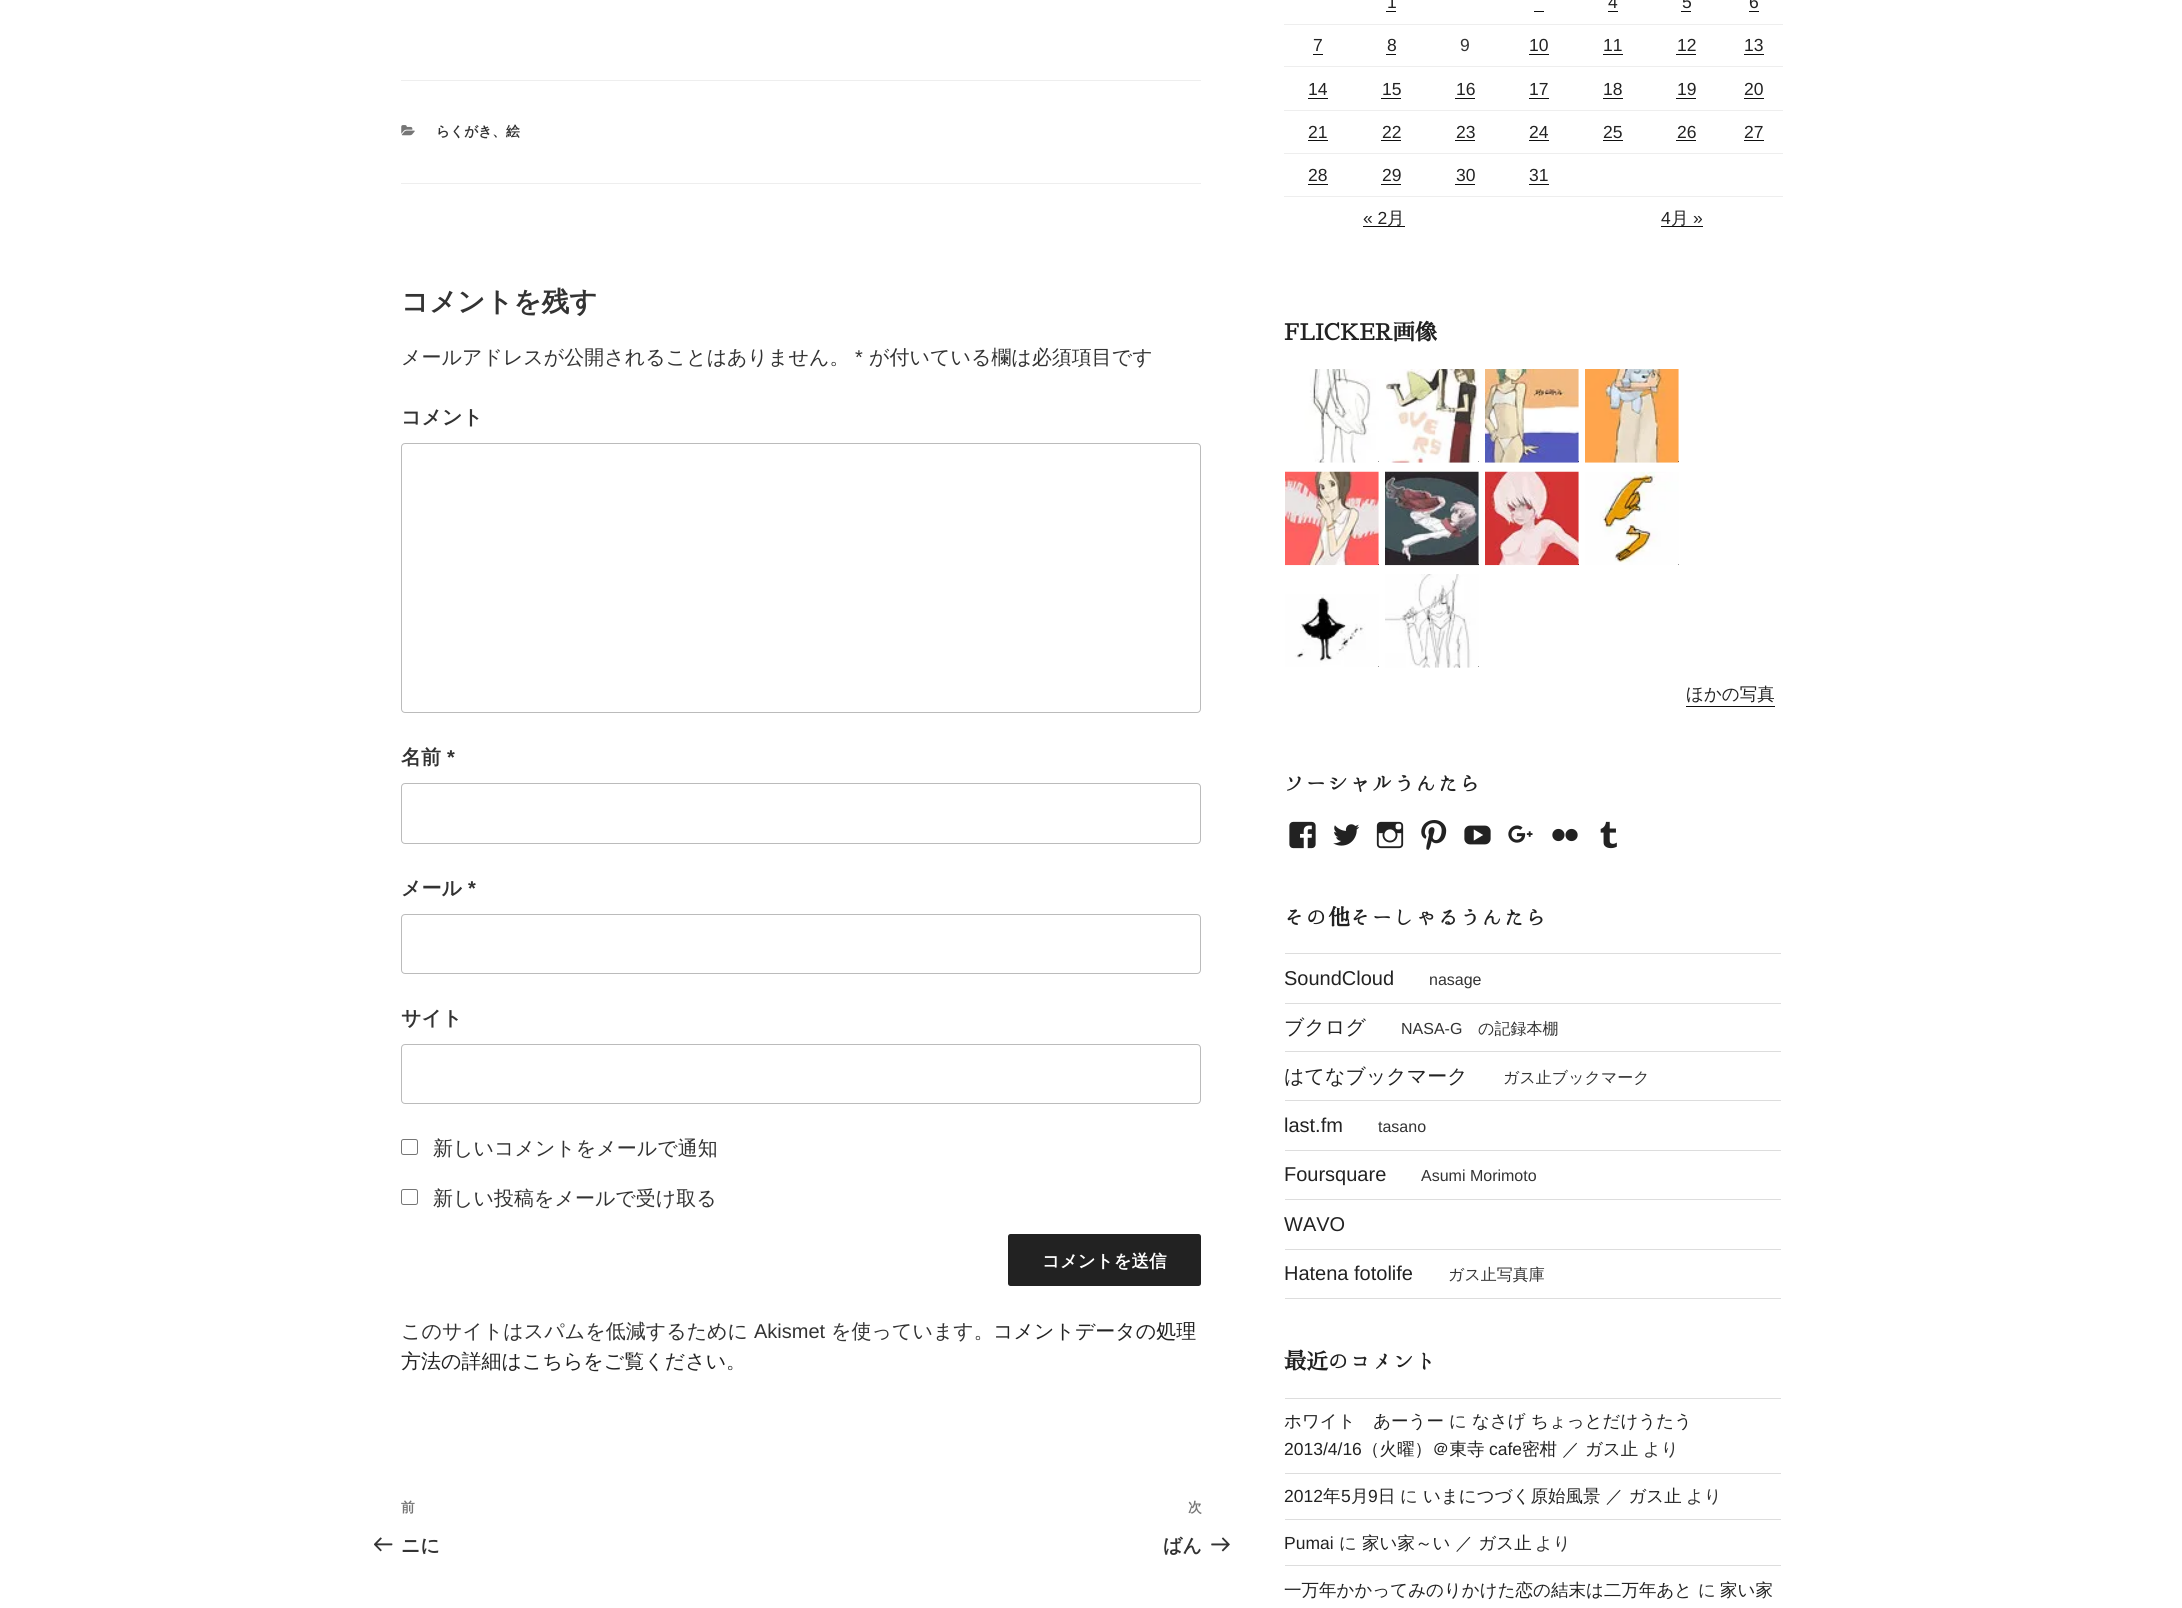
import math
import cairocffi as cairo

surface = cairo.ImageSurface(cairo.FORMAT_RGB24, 2182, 1608)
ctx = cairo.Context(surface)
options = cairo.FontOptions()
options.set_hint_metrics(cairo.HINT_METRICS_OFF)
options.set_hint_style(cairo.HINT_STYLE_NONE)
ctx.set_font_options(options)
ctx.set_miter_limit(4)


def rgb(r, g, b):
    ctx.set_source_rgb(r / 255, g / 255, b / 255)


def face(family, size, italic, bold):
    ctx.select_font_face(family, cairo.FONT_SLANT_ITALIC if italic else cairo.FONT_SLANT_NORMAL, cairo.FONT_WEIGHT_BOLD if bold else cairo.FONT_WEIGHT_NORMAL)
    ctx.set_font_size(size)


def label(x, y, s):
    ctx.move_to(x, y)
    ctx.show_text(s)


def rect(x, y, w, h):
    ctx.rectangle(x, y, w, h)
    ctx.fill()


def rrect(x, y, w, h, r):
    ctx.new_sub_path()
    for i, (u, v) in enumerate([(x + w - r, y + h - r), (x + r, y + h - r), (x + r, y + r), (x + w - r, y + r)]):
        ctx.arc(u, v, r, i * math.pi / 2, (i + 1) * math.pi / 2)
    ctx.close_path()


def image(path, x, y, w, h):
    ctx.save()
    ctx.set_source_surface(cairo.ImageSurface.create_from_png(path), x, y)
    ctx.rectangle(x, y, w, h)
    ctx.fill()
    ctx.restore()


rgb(255, 255, 255)
ctx.paint()
rgb(238, 238, 238)
rect(401, 80, 800, 1)
rect(401, 183, 800, 1)
image('image0.png', 401, 125, 14, 11)
face('WenQuanYi Zen Hei', 13.75, 0, 1)
rgb(51, 51, 51)
label(436, 136, 'らくがき、絵')
face('WenQuanYi Zen Hei', 27.5, 0, 1)
label(401, 311, 'コメントを残す')
face('WenQuanYi Zen Hei Medium', 20, 0, 0)
label(401, 364, 'メールアドレスが公開されることはありません。')
face('Liberation Sans', 20, 0, 0)
label(855, 364, '*')
face('WenQuanYi Zen Hei Medium', 20, 0, 0)
label(869, 364, 'が付いている欄は必須項目です')
face('WenQuanYi Zen Hei', 20, 0, 1)
label(401, 424, 'コメント')
rrect(401.5, 443.5, 799, 269, 3.5)
rgb(187, 187, 187)
ctx.set_line_width(1)
ctx.stroke()
rgb(51, 51, 51)
label(401, 764, '名前')
face('Liberation Sans', 20, 0, 1)
label(447, 764, '*')
rrect(401.5, 783.5, 799, 60, 3.5)
rgb(187, 187, 187)
ctx.stroke()
face('WenQuanYi Zen Hei', 20, 0, 1)
rgb(51, 51, 51)
label(401, 895, 'メール')
face('Liberation Sans', 20, 0, 1)
label(468, 895, '*')
rrect(401.5, 914.5, 799, 59, 3.5)
rgb(187, 187, 187)
ctx.stroke()
face('WenQuanYi Zen Hei', 20, 0, 1)
rgb(51, 51, 51)
label(401, 1025, 'サイト')
rrect(401.5, 1044.5, 799, 59, 3.5)
rgb(187, 187, 187)
ctx.stroke()
rrect(401.5, 1139.5, 16, 15, 2)
rgb(118, 118, 118)
ctx.stroke()
face('WenQuanYi Zen Hei Medium', 20, 0, 0)
rgb(51, 51, 51)
label(433, 1155, '新しいコメントをメールで通知')
rrect(401.5, 1189.5, 16, 15, 2)
rgb(118, 118, 118)
ctx.stroke()
rgb(51, 51, 51)
label(433, 1205, '新しい投稿をメールで受け取る')
rgb(34, 34, 34)
rrect(1008, 1234, 193, 52, 2.5)
ctx.fill()
face('WenQuanYi Zen Hei', 17.5, 0, 1)
rgb(255, 255, 255)
label(1042, 1267, 'コメントを送信')
face('WenQuanYi Zen Hei Medium', 20, 0, 0)
rgb(51, 51, 51)
label(401, 1338, 'このサイトはスパムを低減するために')
face('Liberation Sans', 20, 0, 0)
label(754, 1338, 'Akismet')
face('WenQuanYi Zen Hei Medium', 20, 0, 0)
label(831, 1338, 'を使っています。')
rgb(34, 34, 34)
label(993, 1338, 'コメントデータの処理')
label(401, 1368, '方法の詳細はこちらをご覧ください')
rgb(51, 51, 51)
label(726, 1368, '。')
face('WenQuanYi Zen Hei', 13.75, 0, 1)
rgb(118, 118, 118)
label(401, 1512, '前')
image('image1.png', 374, 1537, 19, 15)
face('WenQuanYi Zen Hei', 19, 0, 1)
rgb(51, 51, 51)
label(401, 1552, 'ニに')
face('WenQuanYi Zen Hei', 13.75, 0, 1)
rgb(118, 118, 118)
label(1188, 1512, '次')
face('WenQuanYi Zen Hei', 19, 0, 1)
rgb(51, 51, 51)
label(1163, 1552, 'ばん')
image('image2.png', 1211, 1537, 19, 15)
rgb(238, 238, 238)
rect(1284, 24, 499, 1)
face('Liberation Sans', 17.5, 0, 0)
rgb(34, 34, 34)
label(1387, 8, '1')
rgb(15, 15, 15)
rect(1386, 11, 10, 1)
rgb(34, 34, 34)
label(1608, 8, '4')
rgb(15, 15, 15)
rect(1608, 11, 10, 1)
rgb(34, 34, 34)
label(1682, 8, '5')
rgb(15, 15, 15)
rect(1681, 11, 10, 1)
rgb(34, 34, 34)
label(1749, 8, '6')
rgb(15, 15, 15)
rect(1749, 11, 10, 1)
rect(1534, 11, 10, 1)
rgb(238, 238, 238)
rect(1284, 66, 499, 1)
rgb(34, 34, 34)
label(1313, 51, '7')
rgb(15, 15, 15)
rect(1313, 54, 10, 1)
rgb(34, 34, 34)
label(1387, 51, '8')
rgb(15, 15, 15)
rect(1386, 54, 10, 1)
rgb(51, 51, 51)
label(1460, 51, '9')
rgb(34, 34, 34)
label(1529, 51, '10')
rgb(15, 15, 15)
rect(1529, 54, 20, 1)
rgb(34, 34, 34)
label(1603, 51, '11')
rgb(15, 15, 15)
rect(1603, 54, 20, 1)
rgb(34, 34, 34)
label(1677, 51, '12')
rgb(15, 15, 15)
rect(1676, 54, 20, 1)
rgb(34, 34, 34)
label(1744, 51, '13')
rgb(15, 15, 15)
rect(1744, 54, 20, 1)
rgb(238, 238, 238)
rect(1284, 110, 499, 1)
rgb(34, 34, 34)
label(1308, 95, '14')
rgb(15, 15, 15)
rect(1308, 98, 20, 1)
rgb(34, 34, 34)
label(1382, 95, '15')
rgb(15, 15, 15)
rect(1381, 98, 20, 1)
rgb(34, 34, 34)
label(1456, 95, '16')
rgb(15, 15, 15)
rect(1455, 98, 20, 1)
rgb(34, 34, 34)
label(1529, 95, '17')
rgb(15, 15, 15)
rect(1529, 98, 20, 1)
rgb(34, 34, 34)
label(1603, 95, '18')
rgb(15, 15, 15)
rect(1603, 98, 20, 1)
rgb(34, 34, 34)
label(1677, 95, '19')
rgb(15, 15, 15)
rect(1676, 98, 20, 1)
rgb(34, 34, 34)
label(1744, 95, '20')
rgb(15, 15, 15)
rect(1744, 98, 20, 1)
rgb(238, 238, 238)
rect(1284, 153, 499, 1)
rgb(34, 34, 34)
label(1308, 138, '21')
rgb(15, 15, 15)
rect(1308, 140, 20, 1)
rgb(34, 34, 34)
label(1382, 138, '22')
rgb(15, 15, 15)
rect(1381, 140, 20, 1)
rgb(34, 34, 34)
label(1456, 138, '23')
rgb(15, 15, 15)
rect(1455, 140, 20, 1)
rgb(34, 34, 34)
label(1529, 138, '24')
rgb(15, 15, 15)
rect(1529, 140, 20, 1)
rgb(34, 34, 34)
label(1603, 138, '25')
rgb(15, 15, 15)
rect(1603, 140, 20, 1)
rgb(34, 34, 34)
label(1677, 138, '26')
rgb(15, 15, 15)
rect(1676, 140, 20, 1)
rgb(34, 34, 34)
label(1744, 138, '27')
rgb(15, 15, 15)
rect(1744, 140, 20, 1)
rgb(238, 238, 238)
rect(1284, 196, 499, 1)
rgb(34, 34, 34)
label(1308, 181, '28')
rgb(15, 15, 15)
rect(1308, 184, 20, 1)
rgb(34, 34, 34)
label(1382, 181, '29')
rgb(15, 15, 15)
rect(1381, 184, 20, 1)
rgb(34, 34, 34)
label(1456, 181, '30')
rgb(15, 15, 15)
rect(1455, 184, 20, 1)
rgb(34, 34, 34)
label(1529, 181, '31')
rgb(15, 15, 15)
rect(1529, 184, 20, 1)
rgb(34, 34, 34)
label(1363, 224, '« 2')
rgb(15, 15, 15)
rect(1363, 226, 42, 1)
face('WenQuanYi Zen Hei Medium', 17.5, 0, 0)
rgb(34, 34, 34)
label(1387, 224, '月')
face('Liberation Sans', 17.5, 0, 0)
label(1661, 224, '4')
rgb(15, 15, 15)
rect(1661, 226, 42, 1)
face('WenQuanYi Zen Hei Medium', 17.5, 0, 0)
rgb(34, 34, 34)
label(1671, 224, '月')
face('Liberation Sans', 17.5, 0, 0)
label(1693, 224, '»')
face('Sawarabi Mincho', 22, 0, 1)
label(1284, 340, 'FLICKER画像')
rgb(15, 15, 15)
rect(1378, 461, 1, 1)
image('image3.png', 1285, 369, 94, 94)
rect(1478, 461, 1, 1)
image('image4.png', 1385, 369, 94, 94)
rect(1578, 461, 1, 1)
image('image5.png', 1485, 369, 94, 94)
rect(1678, 461, 1, 1)
image('image6.png', 1585, 369, 94, 94)
rect(1378, 564, 1, 1)
image('image7.png', 1285, 471, 94, 95)
rect(1478, 564, 1, 1)
image('image8.png', 1385, 471, 94, 95)
rect(1578, 564, 1, 1)
image('image9.png', 1485, 471, 94, 95)
rect(1678, 564, 1, 1)
image('image10.png', 1585, 471, 94, 94)
rect(1378, 666, 1, 1)
image('image11.png', 1285, 594, 94, 73)
rect(1478, 666, 1, 1)
image('image12.png', 1385, 574, 94, 94)
rect(1686, 706, 89, 1)
face('WenQuanYi Zen Hei Medium', 17.5, 0, 0)
rgb(34, 34, 34)
label(1686, 700, 'ほかの写真')
face('Hannari', 22, 0, 1)
label(1284, 791, 'ソーシャルうんたら')
image('image13.png', 1289, 821, 27, 28)
image('image14.png', 1333, 824, 27, 22)
image('image15.png', 1376, 821, 28, 28)
image('image16.png', 1421, 820, 26, 30)
image('image17.png', 1464, 825, 27, 20)
image('image18.png', 1508, 825, 25, 18)
image('image19.png', 1552, 828, 26, 14)
image('image20.png', 1600, 821, 17, 28)
label(1284, 925, 'その そーしゃるうんたら')
face('Sawarabi Mincho', 22, 0, 1)
label(1328, 925, '他')
rgb(221, 221, 221)
rect(1285, 953, 496, 1)
rect(1285, 1003, 496, 1)
face('Liberation Sans', 20, 0, 0)
rgb(34, 34, 34)
label(1284, 985, 'SoundCloud')
face('Liberation Sans', 16, 0, 0)
rgb(51, 51, 51)
label(1429, 985, 'nasage')
rgb(221, 221, 221)
rect(1285, 1051, 496, 1)
face('WenQuanYi Zen Hei Medium', 20, 0, 0)
rgb(34, 34, 34)
label(1284, 1034, 'ブクログ')
face('Liberation Sans', 16, 0, 0)
rgb(51, 51, 51)
label(1401, 1034, 'NASA-G')
face('WenQuanYi Zen Hei Medium', 16, 0, 0)
label(1478, 1034, 'の記録本棚')
rgb(221, 221, 221)
rect(1285, 1100, 496, 1)
face('WenQuanYi Zen Hei Medium', 20, 0, 0)
rgb(34, 34, 34)
label(1284, 1083, 'はてなブックマーク')
face('WenQuanYi Zen Hei Medium', 16, 0, 0)
rgb(51, 51, 51)
label(1503, 1083, 'ガス止ブックマーク')
rgb(221, 221, 221)
rect(1285, 1150, 496, 1)
face('Liberation Sans', 20, 0, 0)
rgb(34, 34, 34)
label(1284, 1132, 'last.fm')
face('Liberation Sans', 16, 0, 0)
rgb(51, 51, 51)
label(1378, 1132, 'tasano')
rgb(221, 221, 221)
rect(1285, 1199, 496, 1)
face('Liberation Sans', 20, 0, 0)
rgb(34, 34, 34)
label(1284, 1181, 'Foursquare')
face('Liberation Sans', 16, 0, 0)
rgb(51, 51, 51)
label(1421, 1181, 'Asumi Morimoto')
rgb(221, 221, 221)
rect(1285, 1249, 496, 1)
face('Liberation Sans', 20, 0, 0)
rgb(34, 34, 34)
label(1284, 1231, 'WAVO')
rgb(221, 221, 221)
rect(1285, 1298, 496, 1)
rgb(34, 34, 34)
label(1284, 1280, 'Hatena fotolife')
face('WenQuanYi Zen Hei Medium', 16, 0, 0)
rgb(51, 51, 51)
label(1448, 1280, 'ガス止写真庫')
face('Sawarabi Mincho', 22, 0, 1)
rgb(34, 34, 34)
label(1284, 1369, '最近')
face('Hannari', 22, 0, 1)
label(1328, 1369, 'のコメント')
rgb(221, 221, 221)
rect(1285, 1398, 496, 1)
rect(1285, 1473, 496, 1)
face('WenQuanYi Zen Hei Medium', 17.5, 0, 0)
rgb(34, 34, 34)
label(1284, 1427, 'ホワイト　あーうー')
rgb(51, 51, 51)
label(1449, 1427, 'に')
rgb(34, 34, 34)
label(1472, 1427, 'なさげ ちょっとだけうたう')
face('Liberation Sans', 17.5, 0, 0)
label(1284, 1455, '2013/4/16')
face('WenQuanYi Zen Hei Medium', 17.5, 0, 0)
label(1362, 1455, '（火曜）＠東寺')
face('Liberation Sans', 17.5, 0, 0)
label(1489, 1455, 'cafe')
face('WenQuanYi Zen Hei Medium', 17.5, 0, 0)
label(1522, 1455, '密柑 ／ ガス止')
rgb(51, 51, 51)
label(1643, 1455, 'より')
rgb(221, 221, 221)
rect(1285, 1519, 496, 1)
face('Liberation Sans', 17.5, 0, 0)
rgb(34, 34, 34)
label(1284, 1502, '2012')
face('WenQuanYi Zen Hei Medium', 17.5, 0, 0)
label(1323, 1502, '年')
face('Liberation Sans', 17.5, 0, 0)
label(1341, 1502, '5')
face('WenQuanYi Zen Hei Medium', 17.5, 0, 0)
label(1351, 1502, '月')
face('Liberation Sans', 17.5, 0, 0)
label(1368, 1502, '9')
face('WenQuanYi Zen Hei Medium', 17.5, 0, 0)
label(1378, 1502, '日')
rgb(51, 51, 51)
label(1400, 1502, 'に')
rgb(34, 34, 34)
label(1423, 1502, 'いまにつづく原始風景 ／ ガス止')
rgb(51, 51, 51)
label(1686, 1502, 'より')
rgb(221, 221, 221)
rect(1285, 1565, 496, 1)
face('Liberation Sans', 17.5, 0, 0)
rgb(34, 34, 34)
label(1284, 1549, 'Pumai')
face('WenQuanYi Zen Hei Medium', 17.5, 0, 0)
rgb(51, 51, 51)
label(1339, 1549, 'に')
rgb(34, 34, 34)
label(1362, 1549, '家い家～い ／ ガス止')
rgb(51, 51, 51)
label(1535, 1549, 'より')
rgb(34, 34, 34)
label(1284, 1596, '一万年かかってみのりかけた恋の結末は二万年あと')
rgb(51, 51, 51)
label(1698, 1596, 'に')
rgb(34, 34, 34)
label(1720, 1596, '家い家')
surface.write_to_png('render.png')
